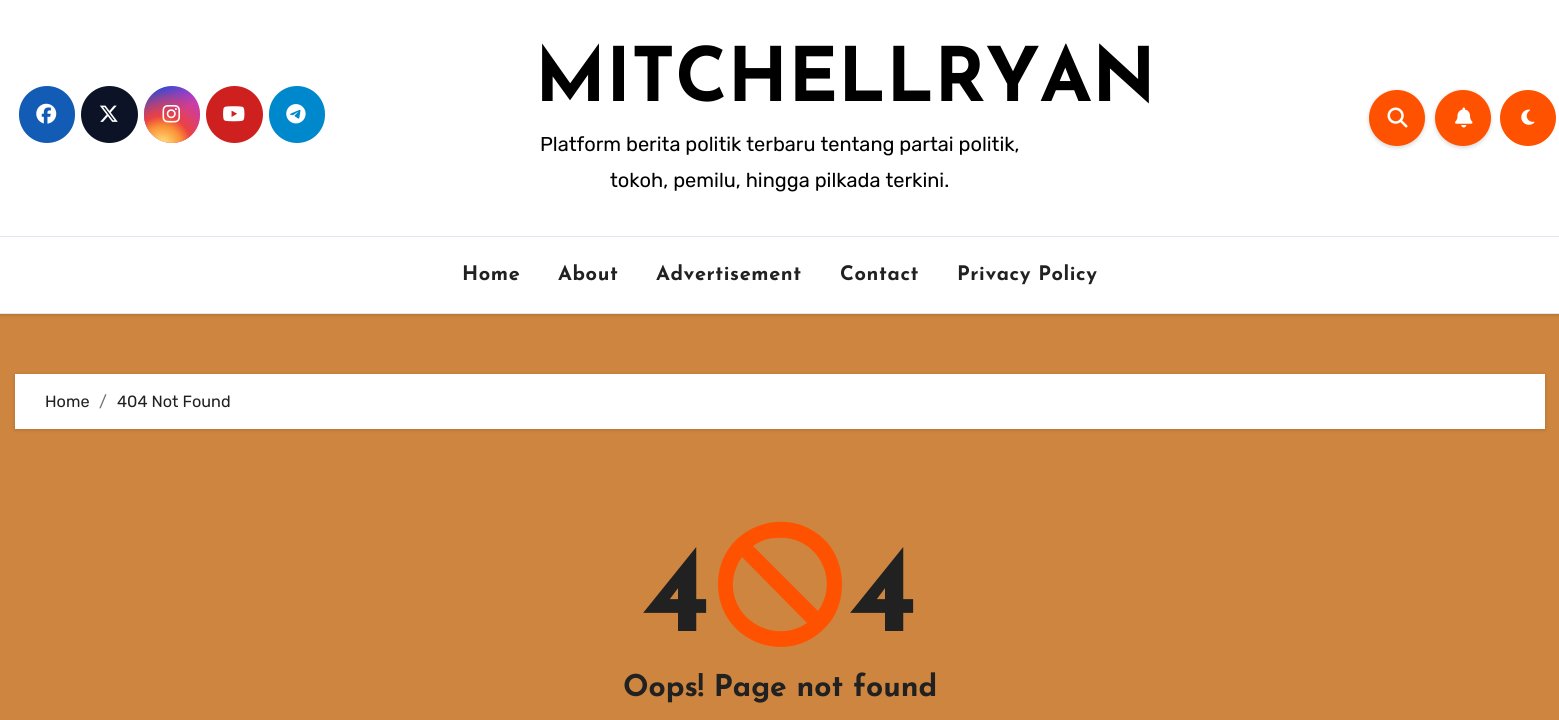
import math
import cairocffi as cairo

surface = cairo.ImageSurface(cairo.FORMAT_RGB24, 1559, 720)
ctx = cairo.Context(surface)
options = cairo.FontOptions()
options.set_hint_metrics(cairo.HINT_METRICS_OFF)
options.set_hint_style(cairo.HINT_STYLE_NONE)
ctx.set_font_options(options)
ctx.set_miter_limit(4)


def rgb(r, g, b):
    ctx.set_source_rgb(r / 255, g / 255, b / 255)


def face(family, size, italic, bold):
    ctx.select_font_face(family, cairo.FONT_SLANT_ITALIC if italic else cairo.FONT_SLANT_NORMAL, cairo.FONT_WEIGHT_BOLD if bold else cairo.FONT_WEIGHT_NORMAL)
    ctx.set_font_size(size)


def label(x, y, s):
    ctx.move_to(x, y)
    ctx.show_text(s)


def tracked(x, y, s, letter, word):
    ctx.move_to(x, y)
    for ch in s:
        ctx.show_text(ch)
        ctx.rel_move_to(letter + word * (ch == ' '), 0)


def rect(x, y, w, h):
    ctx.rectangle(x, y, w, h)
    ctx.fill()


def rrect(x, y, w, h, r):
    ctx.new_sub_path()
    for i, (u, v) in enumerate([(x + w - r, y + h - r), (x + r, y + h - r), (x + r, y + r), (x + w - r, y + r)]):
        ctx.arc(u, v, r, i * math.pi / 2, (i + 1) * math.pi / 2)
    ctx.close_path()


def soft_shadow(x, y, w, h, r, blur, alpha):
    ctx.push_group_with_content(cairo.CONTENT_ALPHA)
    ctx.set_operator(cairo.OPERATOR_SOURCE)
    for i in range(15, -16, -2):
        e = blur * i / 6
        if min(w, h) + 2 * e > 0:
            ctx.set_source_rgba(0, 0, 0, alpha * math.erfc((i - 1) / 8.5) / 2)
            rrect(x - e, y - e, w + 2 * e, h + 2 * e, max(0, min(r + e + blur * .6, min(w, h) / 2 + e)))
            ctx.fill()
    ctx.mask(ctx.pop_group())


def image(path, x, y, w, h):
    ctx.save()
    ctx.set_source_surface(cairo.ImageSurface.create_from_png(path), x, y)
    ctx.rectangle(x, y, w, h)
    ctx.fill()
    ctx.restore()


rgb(205, 133, 63)
ctx.paint()
rgb(255, 255, 255)
rect(0, 0, 1559, 313)
rgb(19, 92, 182)
rrect(19, 86, 56, 57, 28)
ctx.fill()
image('image0.png', 36, 103, 21, 21)
rgb(12, 19, 38)
ctx.arc(109.5, 114.5, 28.5, 0, 2 * math.pi)
ctx.fill()
image('image1.png', 99, 105, 19, 17)
gradient = cairo.LinearGradient(144, 86, 200, 143)
gradient.add_color_stop_rgba(0.12, 0.137, 0.294, 0.843, 1)
gradient.add_color_stop_rgba(0.58, 0.765, 0.235, 0.745, 1)
ctx.set_source(gradient)
rrect(144, 86, 56, 57, 28)
ctx.fill()
gradient = cairo.RadialGradient(162, 146, 0, 162, 146, 71)
gradient.add_color_stop_rgba(0, 1, 0.882, 0.49, 1)
gradient.add_color_stop_rgba(0.1, 1, 0.804, 0.412, 1)
gradient.add_color_stop_rgba(0.28, 0.98, 0.569, 0.216, 1)
gradient.add_color_stop_rgba(0.42, 0.922, 0.255, 0.255, 1)
gradient.add_color_stop_rgba(0.82, 0.922, 0.255, 0.255, 0)
ctx.set_source(gradient)
rrect(144, 86, 56, 57, 28)
ctx.fill()
image('image2.png', 162, 105, 18, 18)
rgb(205, 32, 31)
ctx.arc(234.5, 114.5, 28.5, 0, 2 * math.pi)
ctx.fill()
image('image3.png', 223, 106, 22, 16)
rgb(0, 136, 204)
rrect(269, 86, 56, 57, 28)
ctx.fill()
image('image4.png', 286, 104, 20, 20)
face('Josefin Sans', 75, 0, 1)
rgb(0, 0, 0)
label(535, 101, 'MITCHELLRYAN')
face('Rubik Light', 20, 0, 0)
label(540, 151, 'Platform berita politik terbaru tentang partai politik,')
label(610, 187, 'tokoh, pemilu, hingga pilkada terkini.')
rgb(0, 0, 0)
soft_shadow(1369, 91, 56, 57, 28, 2, 0.15)
rgb(255, 82, 0)
ctx.arc(1397, 118, 28, 0, 2 * math.pi)
ctx.fill()
image('image5.png', 1387, 107, 21, 21)
rgb(0, 0, 0)
soft_shadow(1435, 91, 56, 57, 28, 2, 0.15)
rgb(255, 82, 0)
ctx.arc(1463, 118, 28, 0, 2 * math.pi)
ctx.fill()
image('image6.png', 1455, 107, 18, 21)
ctx.arc(1528, 118, 28, 0, 2 * math.pi)
ctx.fill()
image('image7.png', 1521, 109, 14, 16)
ctx.save()
ctx.rectangle(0, 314, 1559, 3)
ctx.clip()
rgb(0, 0, 0)
soft_shadow(0, 238, 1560, 77, 0, 2, 0.15)
ctx.restore()
rgb(226, 232, 240)
rect(0, 236, 1559, 1)
rect(0, 313, 1559, 1)
face('Josefin Sans', 20, 0, 1)
rgb(33, 33, 33)
tracked(462, 280, 'Home', 0.6, 0)
tracked(558, 280, 'About', 0.6, 0)
tracked(656, 280, 'Advertisement', 0.6, 0)
tracked(840, 280, 'Contact', 0.6, 0)
tracked(957, 280, 'Privacy Policy', 0.6, 0)
rgb(0, 0, 0)
soft_shadow(15, 375, 1530, 55, 0, 2, 0.15)
rgb(255, 255, 255)
rect(15, 374, 1530, 55)
face('Rubik Light', 16.25, 0, 0)
rgb(33, 33, 33)
label(45, 407, 'Home')
rgb(108, 117, 125)
label(99, 407, '/')
rgb(33, 33, 33)
label(117, 407, '404 Not Found')
face('Josefin Sans', 125, 0, 1)
label(642, 631, '4')
rgb(255, 82, 0)
ctx.new_path()
ctx.move_to(807, 623)
ctx.line_to(742, 557)
ctx.curve_to(737, 564, 734, 572, 733, 581)
ctx.curve_to(730, 620, 775, 645, 807, 623)
ctx.close_path()
ctx.move_to(818, 611)
ctx.curve_to(841, 579, 816, 534, 776, 538)
ctx.curve_to(768, 538, 760, 541, 753, 546)
ctx.close_path()
ctx.move_to(718, 584)
ctx.curve_to(718, 525, 793, 499, 830, 546)
ctx.curve_to(838, 557, 842, 571, 842, 584)
ctx.curve_to(842, 598, 838, 612, 830, 622)
ctx.curve_to(793, 670, 718, 644, 718, 584)
ctx.close_path()
ctx.fill()
rgb(33, 33, 33)
label(849, 631, '4')
face('Josefin Sans', 30, 0, 1)
label(623, 696, 'Oops! Page not found')
surface.write_to_png('render.png')
